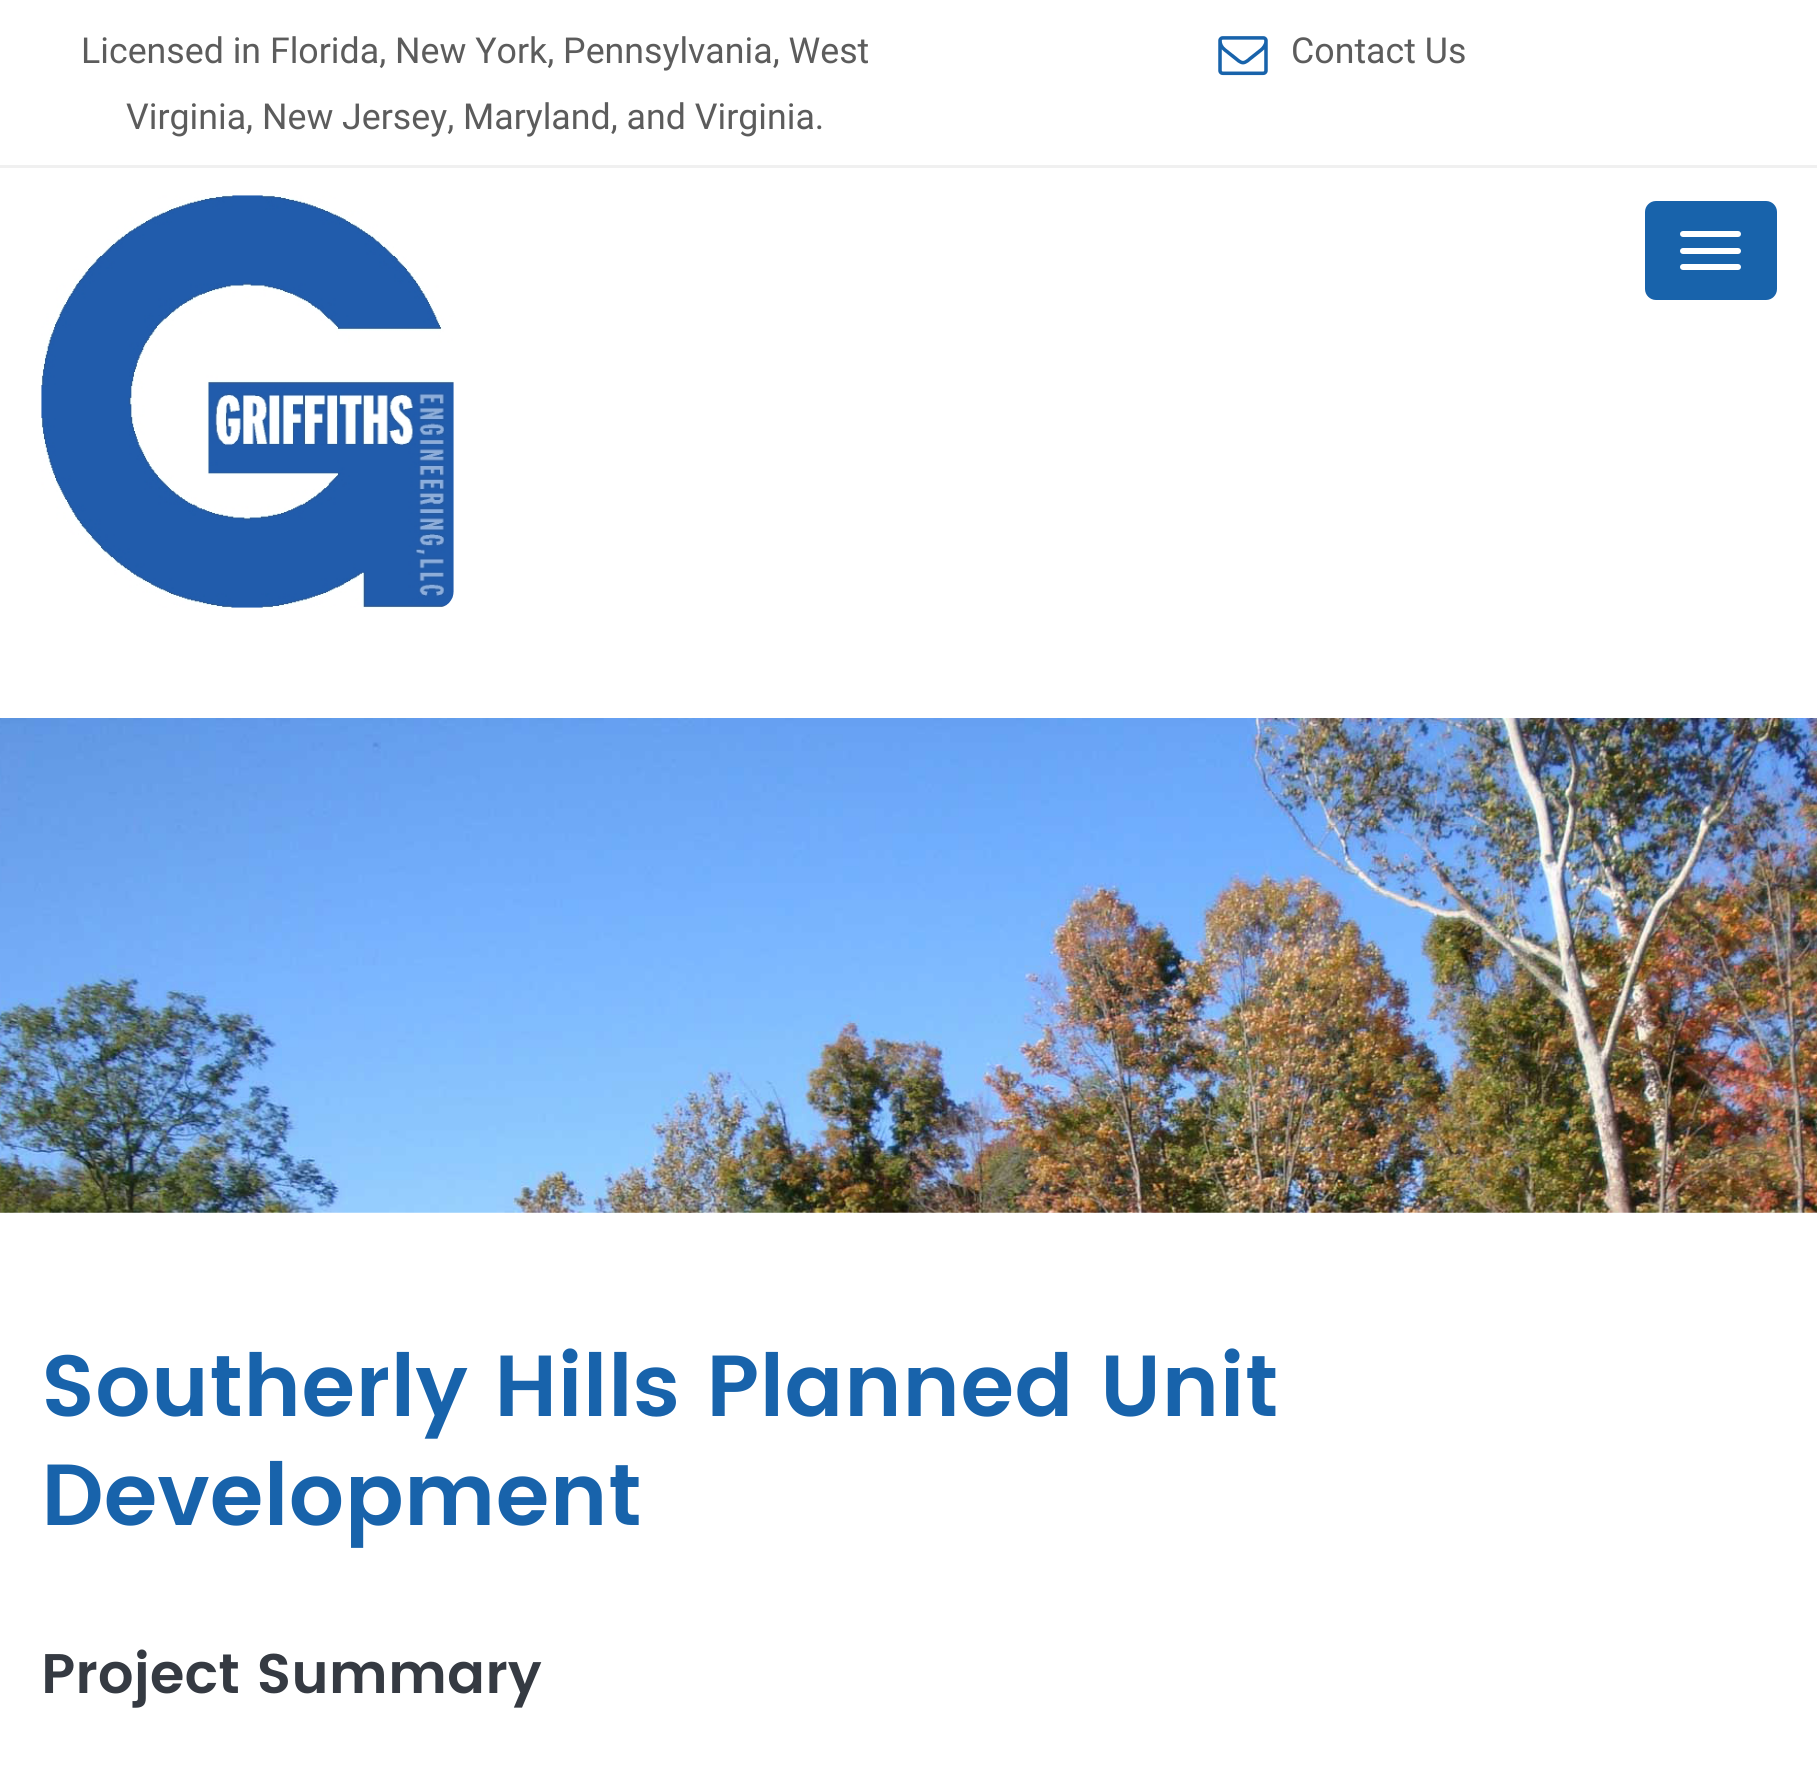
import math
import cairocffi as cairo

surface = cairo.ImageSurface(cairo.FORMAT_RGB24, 1817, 1773)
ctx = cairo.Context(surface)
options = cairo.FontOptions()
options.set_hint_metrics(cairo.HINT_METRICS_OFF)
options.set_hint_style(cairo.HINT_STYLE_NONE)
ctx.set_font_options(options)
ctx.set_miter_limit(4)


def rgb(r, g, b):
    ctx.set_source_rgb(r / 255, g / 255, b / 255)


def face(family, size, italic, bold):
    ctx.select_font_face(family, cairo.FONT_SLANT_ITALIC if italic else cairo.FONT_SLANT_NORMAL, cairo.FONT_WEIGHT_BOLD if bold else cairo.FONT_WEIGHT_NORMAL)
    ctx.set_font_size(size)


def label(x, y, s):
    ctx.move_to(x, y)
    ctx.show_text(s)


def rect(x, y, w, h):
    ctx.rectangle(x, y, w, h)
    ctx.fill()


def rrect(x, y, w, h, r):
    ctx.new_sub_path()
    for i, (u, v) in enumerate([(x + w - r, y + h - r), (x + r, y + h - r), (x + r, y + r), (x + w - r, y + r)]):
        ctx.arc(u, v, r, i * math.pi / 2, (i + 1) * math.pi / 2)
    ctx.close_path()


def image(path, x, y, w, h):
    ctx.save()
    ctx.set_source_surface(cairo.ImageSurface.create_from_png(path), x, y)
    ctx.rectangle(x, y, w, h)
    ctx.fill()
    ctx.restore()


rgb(255, 255, 255)
ctx.paint()
rgb(240, 240, 240)
rect(0, 165, 1817, 3)
face('Roboto', 35.75, 0, 0)
rgb(92, 92, 92)
label(81, 63, 'Licensed in Florida, New York, Pennsylvania, West')
label(126, 129, 'Virginia, New Jersey, Maryland, and Virginia.')
image('image0.png', 1218, 36, 50, 40)
label(1291, 63, 'Contact Us')
image('image1.png', 41, 195, 413, 413)
rgb(24, 99, 171)
rrect(1645, 201, 132, 99, 11)
ctx.fill()
rgb(255, 255, 255)
rrect(1680, 231, 61, 6, 3)
ctx.fill()
rrect(1680, 248, 61, 6, 3)
ctx.fill()
rrect(1680, 264, 61, 6, 3)
ctx.fill()
image('image2.png', 0, 718, 1817, 495)
face('Poppins SemiBold', 86.6, 0, 0)
rgb(24, 99, 171)
label(41, 1416, 'Southerly Hills Planned Unit')
label(41, 1525, 'Development')
face('Poppins SemiBold', 55.75, 0, 0)
rgb(53, 58, 66)
label(41, 1693, 'Project Summary')
surface.write_to_png('render.png')
